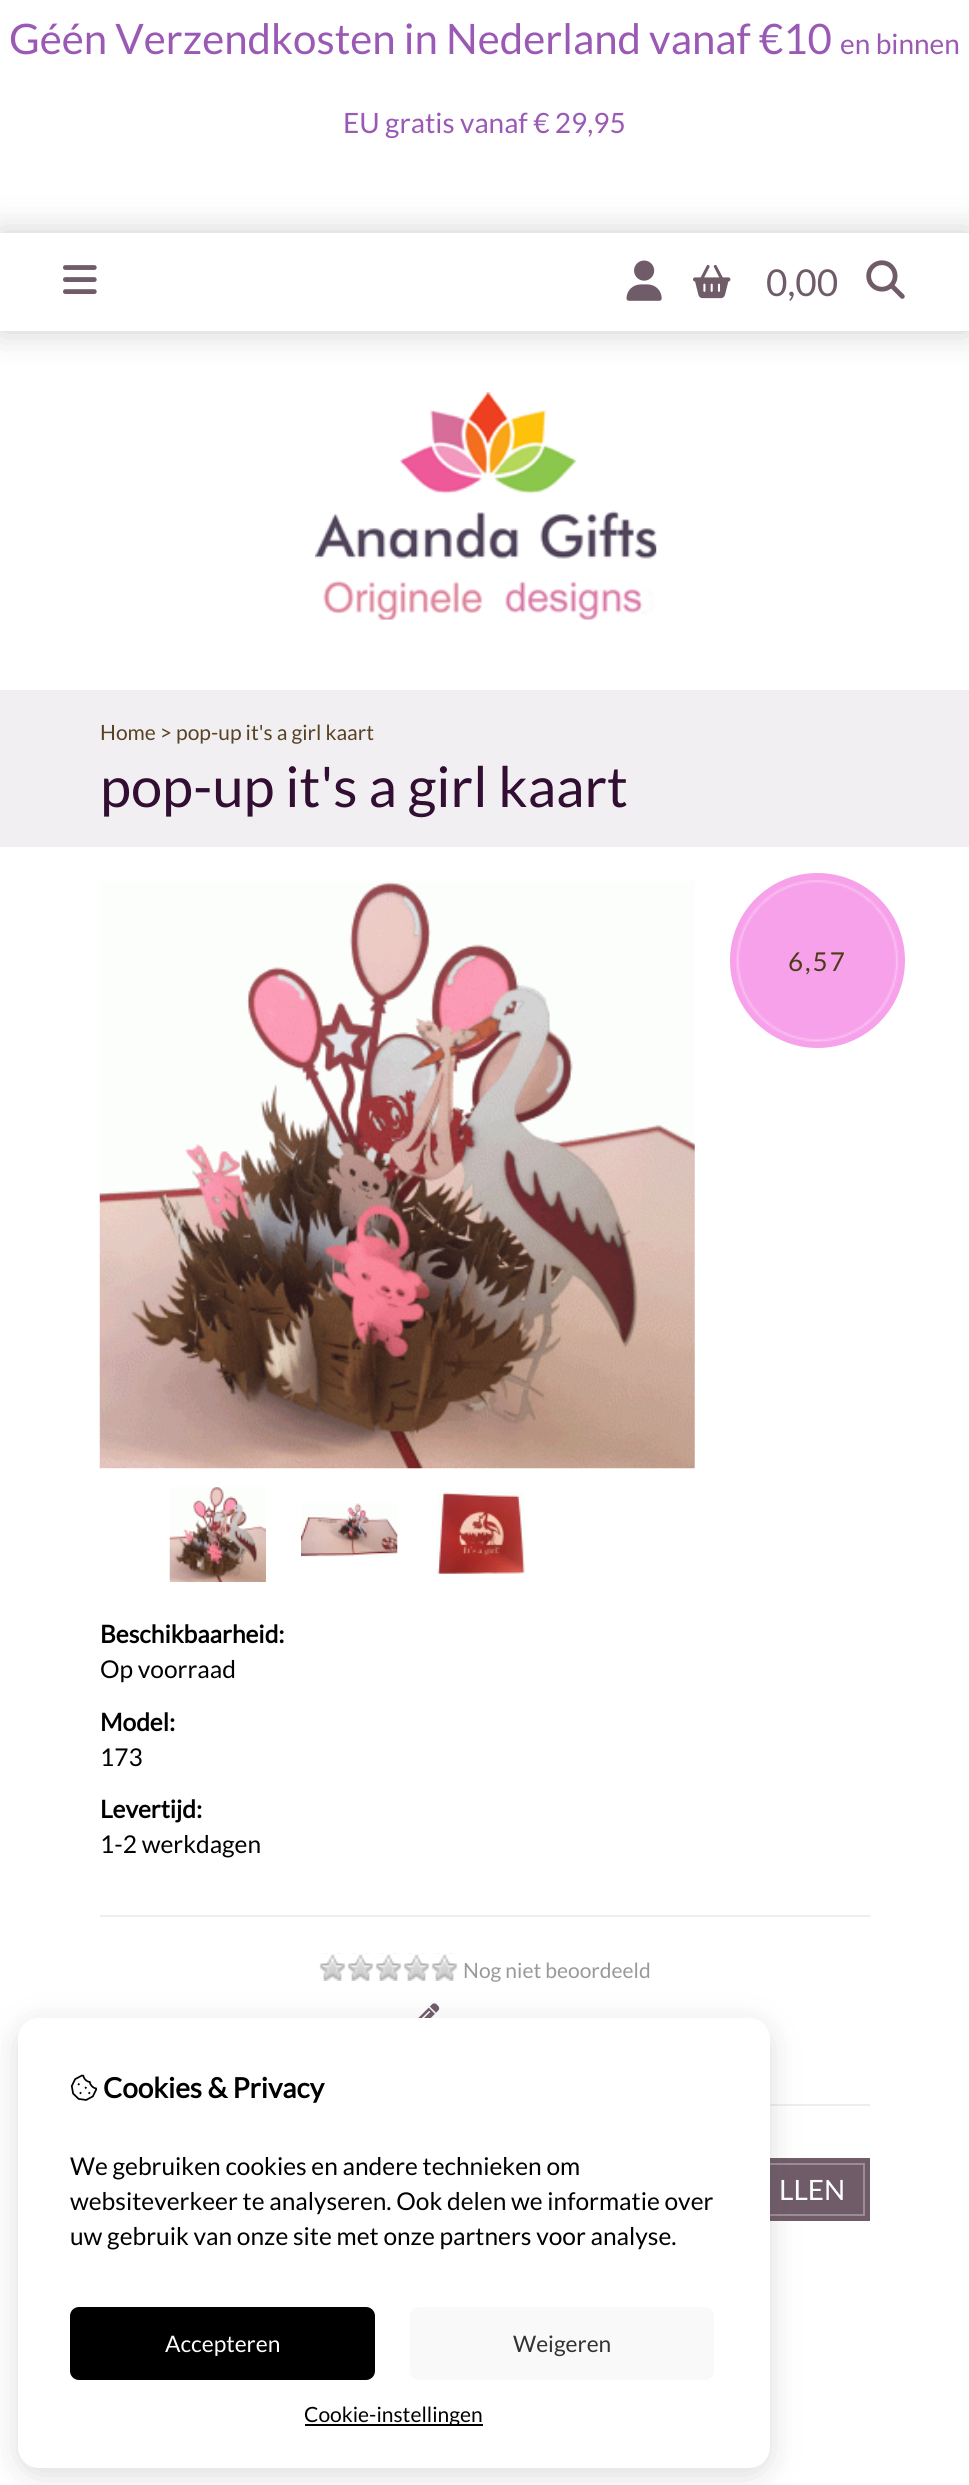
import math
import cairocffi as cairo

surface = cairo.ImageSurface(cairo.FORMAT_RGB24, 969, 2485)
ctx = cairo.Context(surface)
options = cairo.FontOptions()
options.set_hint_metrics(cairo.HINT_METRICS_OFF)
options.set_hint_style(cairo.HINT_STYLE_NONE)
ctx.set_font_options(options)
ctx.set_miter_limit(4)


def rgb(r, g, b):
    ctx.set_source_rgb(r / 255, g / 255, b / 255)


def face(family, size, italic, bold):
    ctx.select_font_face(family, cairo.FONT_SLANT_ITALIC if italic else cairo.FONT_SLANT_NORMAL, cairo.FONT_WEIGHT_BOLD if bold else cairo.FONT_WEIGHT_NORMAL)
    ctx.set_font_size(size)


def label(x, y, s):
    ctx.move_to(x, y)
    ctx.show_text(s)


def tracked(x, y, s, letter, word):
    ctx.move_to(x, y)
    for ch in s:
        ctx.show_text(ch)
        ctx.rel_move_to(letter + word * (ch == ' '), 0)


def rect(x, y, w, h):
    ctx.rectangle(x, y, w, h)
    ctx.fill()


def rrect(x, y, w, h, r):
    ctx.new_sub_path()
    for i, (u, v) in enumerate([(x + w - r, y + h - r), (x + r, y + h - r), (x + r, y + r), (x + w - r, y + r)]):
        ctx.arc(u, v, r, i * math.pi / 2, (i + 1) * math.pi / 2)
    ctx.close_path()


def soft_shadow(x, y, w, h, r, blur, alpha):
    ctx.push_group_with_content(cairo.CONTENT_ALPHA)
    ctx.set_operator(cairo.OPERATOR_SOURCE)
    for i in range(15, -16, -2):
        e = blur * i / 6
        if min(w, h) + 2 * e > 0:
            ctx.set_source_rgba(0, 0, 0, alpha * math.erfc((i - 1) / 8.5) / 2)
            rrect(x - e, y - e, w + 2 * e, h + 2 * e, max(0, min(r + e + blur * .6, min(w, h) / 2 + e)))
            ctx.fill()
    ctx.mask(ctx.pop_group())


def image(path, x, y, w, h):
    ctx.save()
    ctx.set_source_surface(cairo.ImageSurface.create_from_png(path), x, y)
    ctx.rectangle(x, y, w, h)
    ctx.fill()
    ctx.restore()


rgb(255, 255, 255)
ctx.paint()
face('Lato', 42, 0, 0)
rgb(155, 89, 182)
label(9, 54, 'Géén Verzendkosten in Nederland vanaf €10')
face('Lato', 28, 0, 0)
label(840, 54, 'en binnen')
label(343, 133, 'EU gratis vanaf € 29,95')
rgb(0, 0, 0)
soft_shadow(0, 233, 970, 98, 0, 17.5, 0.2)
rgb(255, 255, 255)
rect(0, 233, 969, 98)
image('image0.png', 63, 265, 34, 29)
image('image1.png', 626, 260, 36, 41)
image('image2.png', 693, 264, 38, 35)
face('Lato', 37, 0, 0)
rgb(112, 92, 105)
label(766, 296, '0,00')
image('image3.png', 866, 260, 39, 39)
image('image4.png', 315, 392, 342, 228)
rgb(242, 239, 242)
rect(0, 690, 969, 157)
face('Lato', 21, 0, 0)
rgb(87, 67, 36)
label(100, 740, 'Home > pop-up it\'s a girl kaart')
face('Lato', 56, 0, 0)
rgb(51, 14, 51)
label(100, 807, 'pop-up it\'s a girl kaart')
image('image5.png', 99, 881, 596, 588)
image('image6.png', 169, 1487, 97, 95)
image('image7.png', 301, 1503, 97, 54)
image('image8.png', 437, 1492, 88, 82)
rgb(247, 161, 234)
ctx.arc(817.5, 960.5, 87.5, 0, 2 * math.pi)
ctx.fill()
image('image9.png', 736, 880, 163, 162)
face('Lato', 26, 0, 0)
rgb(77, 59, 23)
tracked(788, 971, '6,57', 2, 0)
face('Lato', 24.5, 0, 1)
rgb(0, 0, 0)
label(100, 1643, 'Beschikbaarheid:')
face('Lato', 24.5, 0, 0)
label(100, 1678, 'Op voorraad')
face('Lato', 24.5, 0, 1)
label(100, 1731, 'Model:')
face('Lato', 24.5, 0, 0)
label(100, 1766, '173')
face('Lato', 24.5, 0, 1)
label(100, 1818, 'Levertijd:')
face('Lato', 24.5, 0, 0)
label(100, 1853, '1-2 werkdagen')
rgb(238, 238, 238)
rect(100, 1915, 770, 2)
image('image10.png', 319, 1953, 139, 28)
face('Lato', 21, 0, 0)
rgb(153, 153, 153)
label(463, 1978, 'Nog niet beoordeeld')
image('image11.png', 418, 2003, 22, 15)
rgb(238, 238, 238)
rect(770, 2104, 100, 2)
rgb(112, 92, 105)
rect(770, 2158, 100, 63)
ctx.rectangle(633, 2164, 231, 51)
rgb(155, 141, 150)
ctx.stroke()
face('Lato', 28, 0, 0)
rgb(255, 255, 255)
label(779, 2200, 'LLEN')
rgb(76, 76, 76)
soft_shadow(18, 2025, 752, 450, 21, 15, 0.2)
rgb(255, 255, 255)
rrect(18, 2018, 752, 450, 21)
ctx.fill()
image('image12.png', 70, 2074, 28, 27)
face('Lato', 28, 0, 1)
rgb(0, 0, 0)
label(103, 2098, 'Cookies & Privacy')
face('Lato', 24.5, 0, 0)
label(70, 2175, 'We gebruiken cookies en andere technieken om')
label(70, 2210, 'websiteverkeer te analyseren. Ook delen we informatie over')
label(70, 2245, 'uw gebruik van onze site met onze partners voor analyse.')
rrect(70, 2307, 305, 73, 9)
ctx.fill()
face('Lato', 22.75, 0, 0)
rgb(255, 255, 255)
label(165, 2352, 'Accepteren')
rgb(249, 249, 249)
rrect(410, 2307, 304, 73, 9)
ctx.fill()
rgb(51, 51, 51)
label(513, 2352, 'Weigeren')
rgb(0, 0, 0)
rect(305, 2424, 178, 2)
face('Lato', 21, 0, 0)
label(304, 2422, 'Cookie-instellingen')
surface.write_to_png('render.png')
